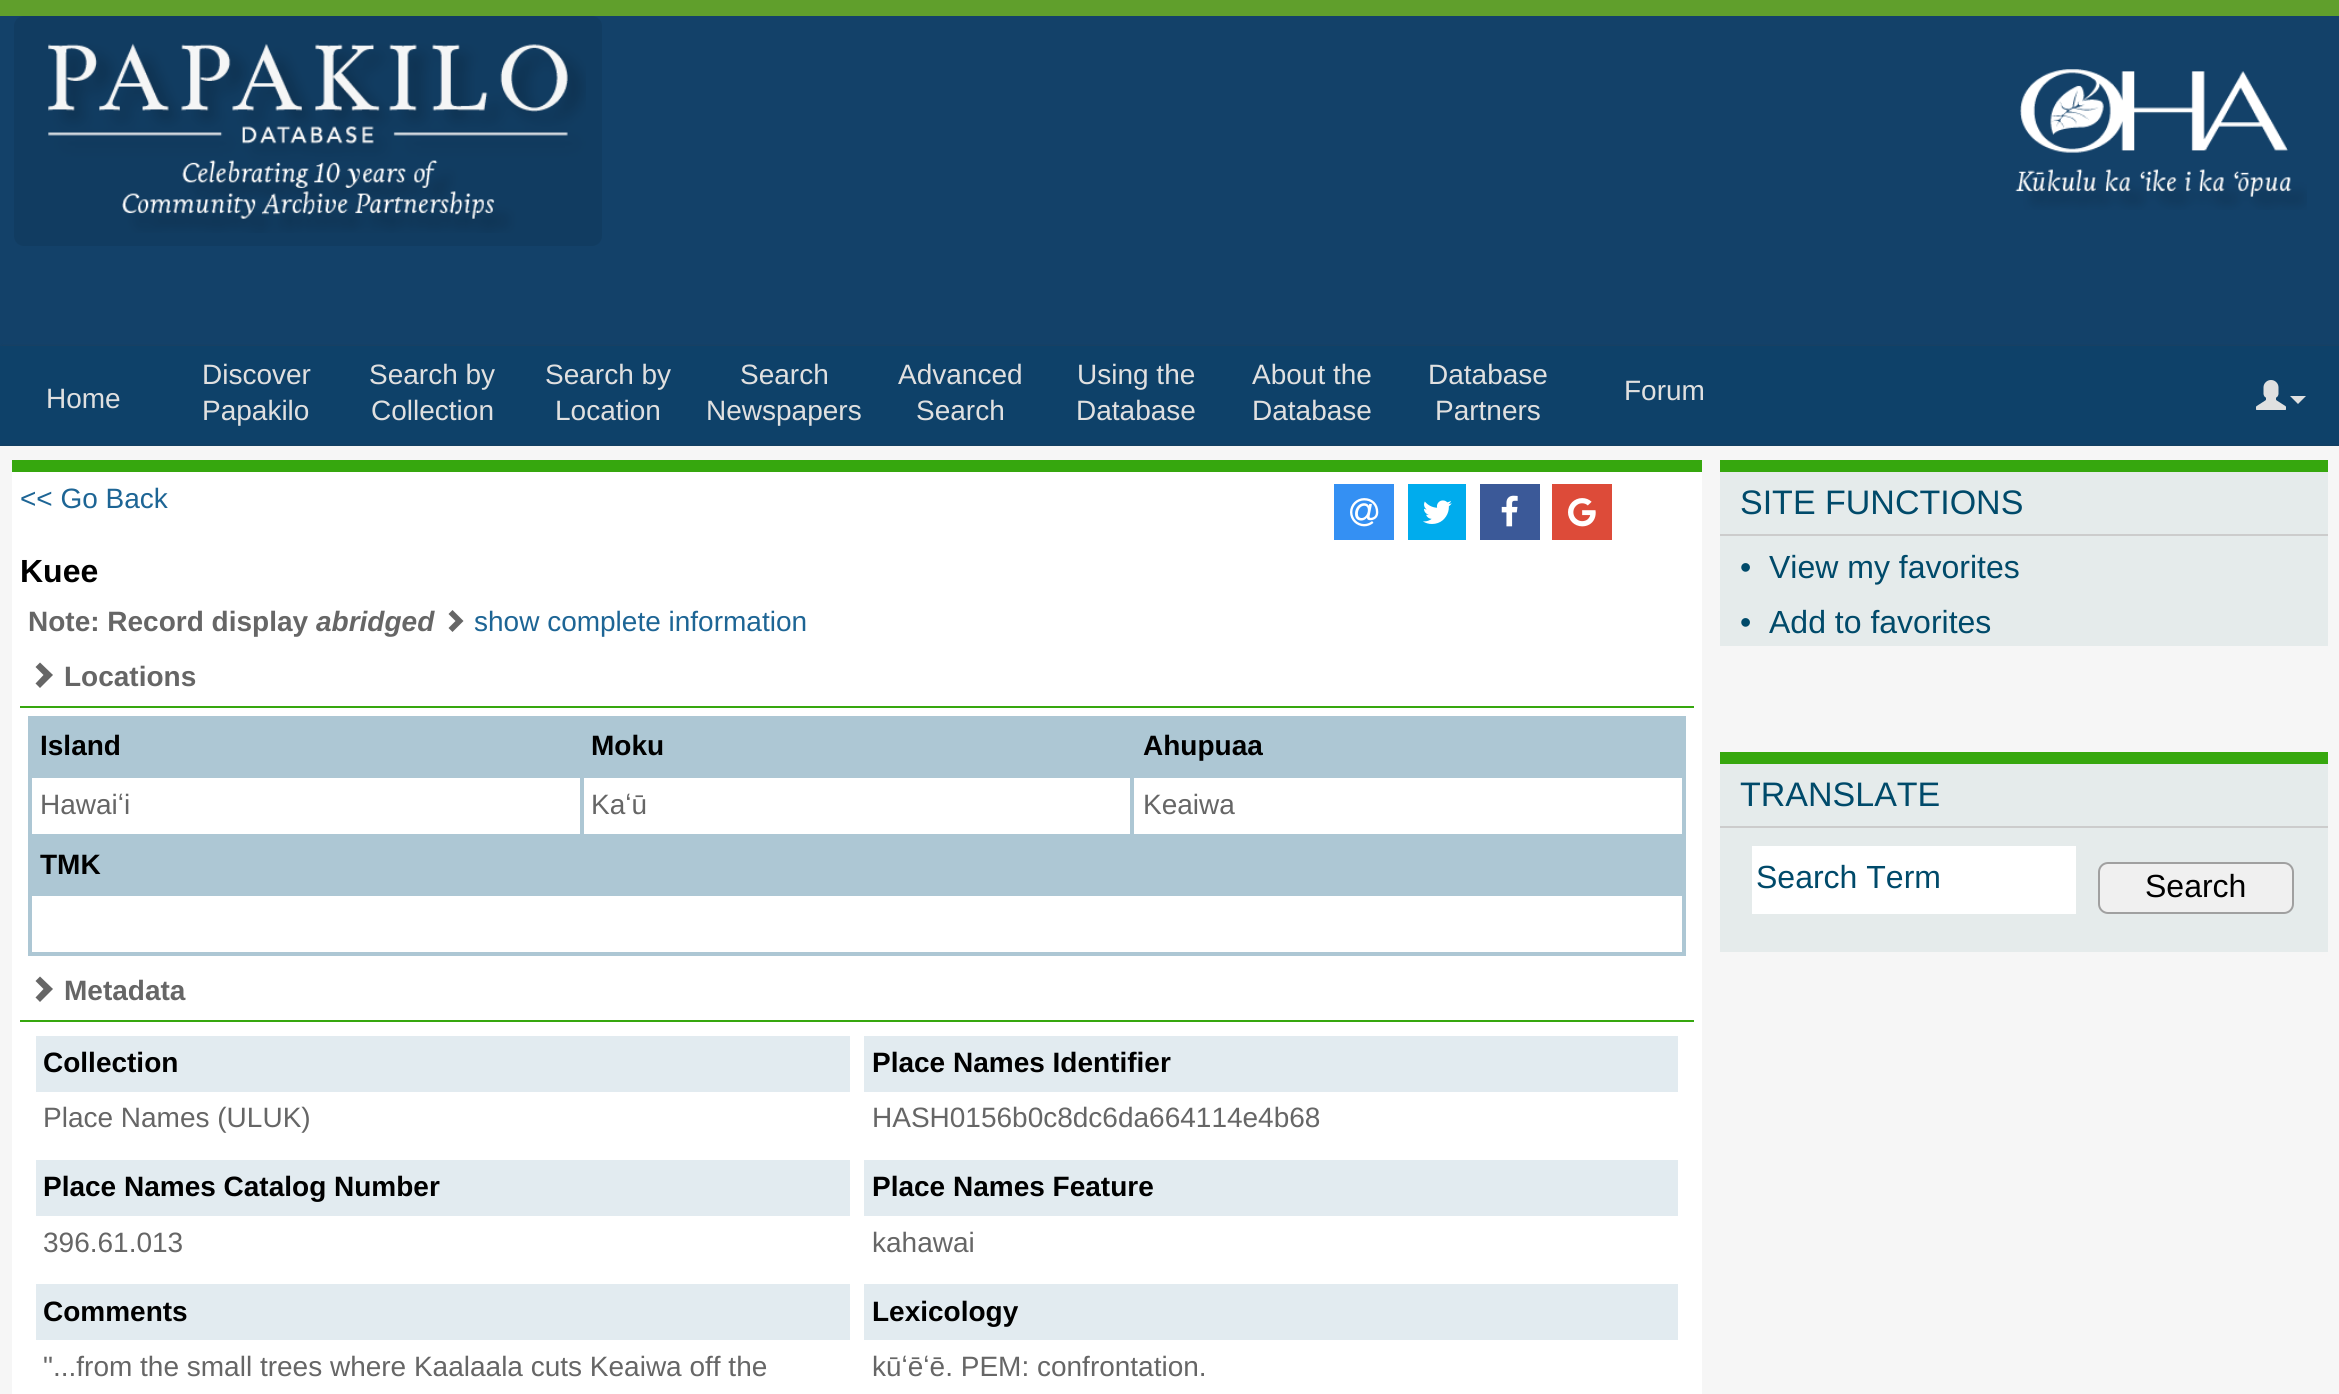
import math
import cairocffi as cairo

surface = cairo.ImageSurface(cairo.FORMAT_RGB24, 2339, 1394)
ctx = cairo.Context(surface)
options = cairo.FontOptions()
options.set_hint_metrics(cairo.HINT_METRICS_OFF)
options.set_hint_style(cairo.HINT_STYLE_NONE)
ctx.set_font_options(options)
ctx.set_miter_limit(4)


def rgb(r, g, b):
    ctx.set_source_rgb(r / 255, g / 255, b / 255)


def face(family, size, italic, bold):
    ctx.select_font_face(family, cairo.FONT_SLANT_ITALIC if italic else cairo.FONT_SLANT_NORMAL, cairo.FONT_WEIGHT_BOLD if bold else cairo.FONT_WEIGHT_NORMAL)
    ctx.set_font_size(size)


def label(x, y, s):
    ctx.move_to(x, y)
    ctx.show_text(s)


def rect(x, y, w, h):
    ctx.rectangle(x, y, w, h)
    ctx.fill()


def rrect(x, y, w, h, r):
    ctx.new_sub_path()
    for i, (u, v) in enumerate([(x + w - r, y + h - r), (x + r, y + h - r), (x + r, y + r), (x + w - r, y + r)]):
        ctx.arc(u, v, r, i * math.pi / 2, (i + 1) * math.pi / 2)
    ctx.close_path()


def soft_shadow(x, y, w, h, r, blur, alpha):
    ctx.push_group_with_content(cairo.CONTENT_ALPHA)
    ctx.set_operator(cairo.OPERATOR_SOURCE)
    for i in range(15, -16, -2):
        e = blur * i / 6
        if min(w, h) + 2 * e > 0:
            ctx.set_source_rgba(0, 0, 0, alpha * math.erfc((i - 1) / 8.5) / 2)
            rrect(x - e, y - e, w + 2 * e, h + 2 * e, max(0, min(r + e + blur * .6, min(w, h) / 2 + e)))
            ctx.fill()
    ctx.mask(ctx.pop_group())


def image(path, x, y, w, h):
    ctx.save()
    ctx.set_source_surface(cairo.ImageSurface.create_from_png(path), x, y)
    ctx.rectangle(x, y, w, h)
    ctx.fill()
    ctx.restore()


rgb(19, 65, 105)
ctx.paint()
rgb(96, 159, 44)
rect(0, 0, 2339, 16)
rgb(17, 60, 97)
rrect(14, 16, 588, 230, 10)
ctx.fill()
image('image0.png', 48, 43, 538, 190)
image('image1.png', 2015, 69, 292, 141)
rgb(51, 51, 51)
soft_shadow(2, 348, 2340, 100, 0, 2, 1)
rgb(14, 65, 105)
rect(0, 346, 2339, 100)
face('Liberation Sans', 28, 0, 0)
rgb(224, 224, 224)
label(46, 408, 'Home')
label(202, 384, 'Discover')
label(202, 420, 'Papakilo')
label(369, 384, 'Search by')
label(371, 420, 'Collection')
label(545, 384, 'Search by')
label(555, 420, 'Location')
label(740, 384, 'Search')
label(706, 420, 'Newspapers')
label(898, 384, 'Advanced')
label(916, 420, 'Search')
label(1077, 384, 'Using the')
label(1076, 420, 'Database')
label(1252, 384, 'About the')
label(1252, 420, 'Database')
label(1428, 384, 'Database')
label(1435, 420, 'Partners')
label(1624, 400, 'Forum')
image('image2.png', 2256, 380, 30, 30)
ctx.new_path()
ctx.move_to(2290, 396)
ctx.line_to(2306, 396)
ctx.line_to(2298, 404)
ctx.close_path()
ctx.fill()
rgb(51, 51, 51)
soft_shadow(2, 448, 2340, 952, 0, 2, 1)
rgb(246, 246, 246)
rect(0, 446, 2339, 948)
rgb(255, 255, 255)
rect(12, 472, 1690, 922)
rgb(54, 167, 14)
rect(12, 460, 1690, 12)
rgb(29, 101, 149)
label(20, 508, '<< Go Back')
rgb(52, 144, 243)
rect(1334, 484, 60, 56)
image('image3.png', 1350, 498, 29, 29)
rgb(0, 172, 237)
rect(1408, 484, 58, 56)
image('image4.png', 1423, 500, 29, 24)
rgb(59, 89, 152)
rect(1480, 484, 60, 56)
image('image5.png', 1501, 495, 17, 32)
rgb(221, 75, 57)
rect(1552, 484, 60, 56)
image('image6.png', 1568, 498, 28, 29)
face('Liberation Sans', 32, 0, 1)
rgb(0, 0, 0)
label(20, 582, 'Kuee')
face('Liberation Sans', 28, 0, 1)
rgb(102, 102, 102)
label(28, 631, 'Note: Record display')
face('Liberation Sans', 28, 1, 1)
label(316, 631, 'abridged')
ctx.new_path()
ctx.move_to(463.5, 621)
ctx.line_to(452.5, 632)
ctx.line_to(448.5, 628)
ctx.line_to(455.5, 621)
ctx.line_to(448.5, 614)
ctx.line_to(452.5, 610)
ctx.close_path()
ctx.fill()
face('Liberation Sans', 28, 0, 0)
rgb(29, 101, 149)
label(474, 631, 'show complete information')
rgb(54, 167, 14)
rect(20, 706, 1674, 2)
rgb(102, 102, 102)
ctx.new_path()
ctx.move_to(53, 675)
ctx.line_to(40, 688)
ctx.line_to(35.5, 683.5)
ctx.line_to(43.5, 675)
ctx.line_to(35.5, 667)
ctx.line_to(40, 662.5)
ctx.close_path()
ctx.fill()
face('Liberation Sans', 28, 0, 1)
label(64, 686, 'Locations')
rgb(173, 199, 212)
rect(28, 716, 1658, 240)
rgb(0, 0, 0)
label(40, 755, 'Island')
label(591, 755, 'Moku')
label(1143, 755, 'Ahupuaa')
rgb(255, 255, 255)
rect(32, 778, 548, 56)
face('Liberation Sans', 28, 0, 0)
rgb(102, 102, 102)
label(40, 814, 'Hawaiʻi')
rgb(255, 255, 255)
rect(584, 778, 546, 56)
rgb(102, 102, 102)
label(591, 814, 'Kaʻū')
rgb(255, 255, 255)
rect(1134, 778, 548, 56)
rgb(102, 102, 102)
label(1143, 814, 'Keaiwa')
face('Liberation Sans', 28, 0, 1)
rgb(0, 0, 0)
label(40, 874, 'TMK')
rgb(255, 255, 255)
rect(32, 896, 1650, 56)
rgb(54, 167, 14)
rect(20, 1020, 1674, 2)
rgb(102, 102, 102)
ctx.new_path()
ctx.move_to(53, 989)
ctx.line_to(40, 1002)
ctx.line_to(35.5, 997.5)
ctx.line_to(43.5, 989)
ctx.line_to(35.5, 981)
ctx.line_to(40, 976.5)
ctx.close_path()
ctx.fill()
label(64, 1000, 'Metadata')
rgb(226, 235, 240)
rect(36, 1036, 814, 56)
rgb(0, 0, 0)
label(43, 1072, 'Collection')
face('Liberation Sans', 28, 0, 0)
rgb(102, 102, 102)
label(43, 1127, 'Place Names (ULUK)')
rgb(226, 235, 240)
rect(864, 1036, 814, 56)
face('Liberation Sans', 28, 0, 1)
rgb(0, 0, 0)
label(872, 1072, 'Place Names Identifier')
face('Liberation Sans', 28, 0, 0)
rgb(102, 102, 102)
label(872, 1127, 'HASH0156b0c8dc6da664114e4b68')
rgb(226, 235, 240)
rect(36, 1160, 814, 56)
face('Liberation Sans', 28, 0, 1)
rgb(0, 0, 0)
label(43, 1196, 'Place Names Catalog Number')
face('Liberation Sans', 28, 0, 0)
rgb(102, 102, 102)
label(43, 1252, '396.61.013')
rgb(226, 235, 240)
rect(864, 1160, 814, 56)
face('Liberation Sans', 28, 0, 1)
rgb(0, 0, 0)
label(872, 1196, 'Place Names Feature')
face('Liberation Sans', 28, 0, 0)
rgb(102, 102, 102)
label(872, 1252, 'kahawai')
rgb(226, 235, 240)
rect(36, 1284, 814, 56)
face('Liberation Sans', 28, 0, 1)
rgb(0, 0, 0)
label(43, 1321, 'Comments')
face('Liberation Sans', 28, 0, 0)
rgb(102, 102, 102)
label(43, 1376, '"...from the small trees where Kaalaala cuts Keaiwa off the')
rgb(226, 235, 240)
rect(864, 1284, 814, 56)
face('Liberation Sans', 28, 0, 1)
rgb(0, 0, 0)
label(872, 1321, 'Lexicology')
face('Liberation Sans', 28, 0, 0)
rgb(102, 102, 102)
label(872, 1376, 'kūʻēʻē. PEM: confrontation.')
rgb(54, 167, 14)
rect(1720, 460, 608, 12)
rgb(229, 235, 235)
rect(1720, 472, 608, 62)
rgb(204, 204, 204)
rect(1720, 534, 608, 2)
face('Liberation Sans', 34, 0, 0)
rgb(0, 74, 106)
label(1740, 514, 'SITE FUNCTIONS')
rgb(229, 235, 235)
rect(1720, 536, 608, 110)
face('Liberation Sans', 32, 0, 0)
rgb(0, 74, 106)
label(1740, 578, '•')
label(1769, 578, 'View my favorites')
label(1740, 633, '•')
label(1769, 633, 'Add to favorites')
rgb(54, 167, 14)
rect(1720, 752, 608, 12)
rgb(229, 235, 235)
rect(1720, 764, 608, 62)
rgb(204, 204, 204)
rect(1720, 826, 608, 2)
face('Liberation Sans', 34, 0, 0)
rgb(0, 74, 106)
label(1740, 806, 'TRANSLATE')
rgb(229, 235, 235)
rect(1720, 828, 608, 124)
rgb(255, 255, 255)
rect(1752, 846, 324, 68)
face('Liberation Sans', 32, 0, 0)
rgb(0, 74, 106)
label(1756, 888, 'Search Term')
rgb(240, 240, 240)
rrect(2099, 863, 194, 50, 9)
ctx.fill_preserve()
rgb(160, 160, 160)
ctx.stroke()
rgb(0, 0, 0)
label(2145, 897, 'Search')
surface.write_to_png('render.png')
